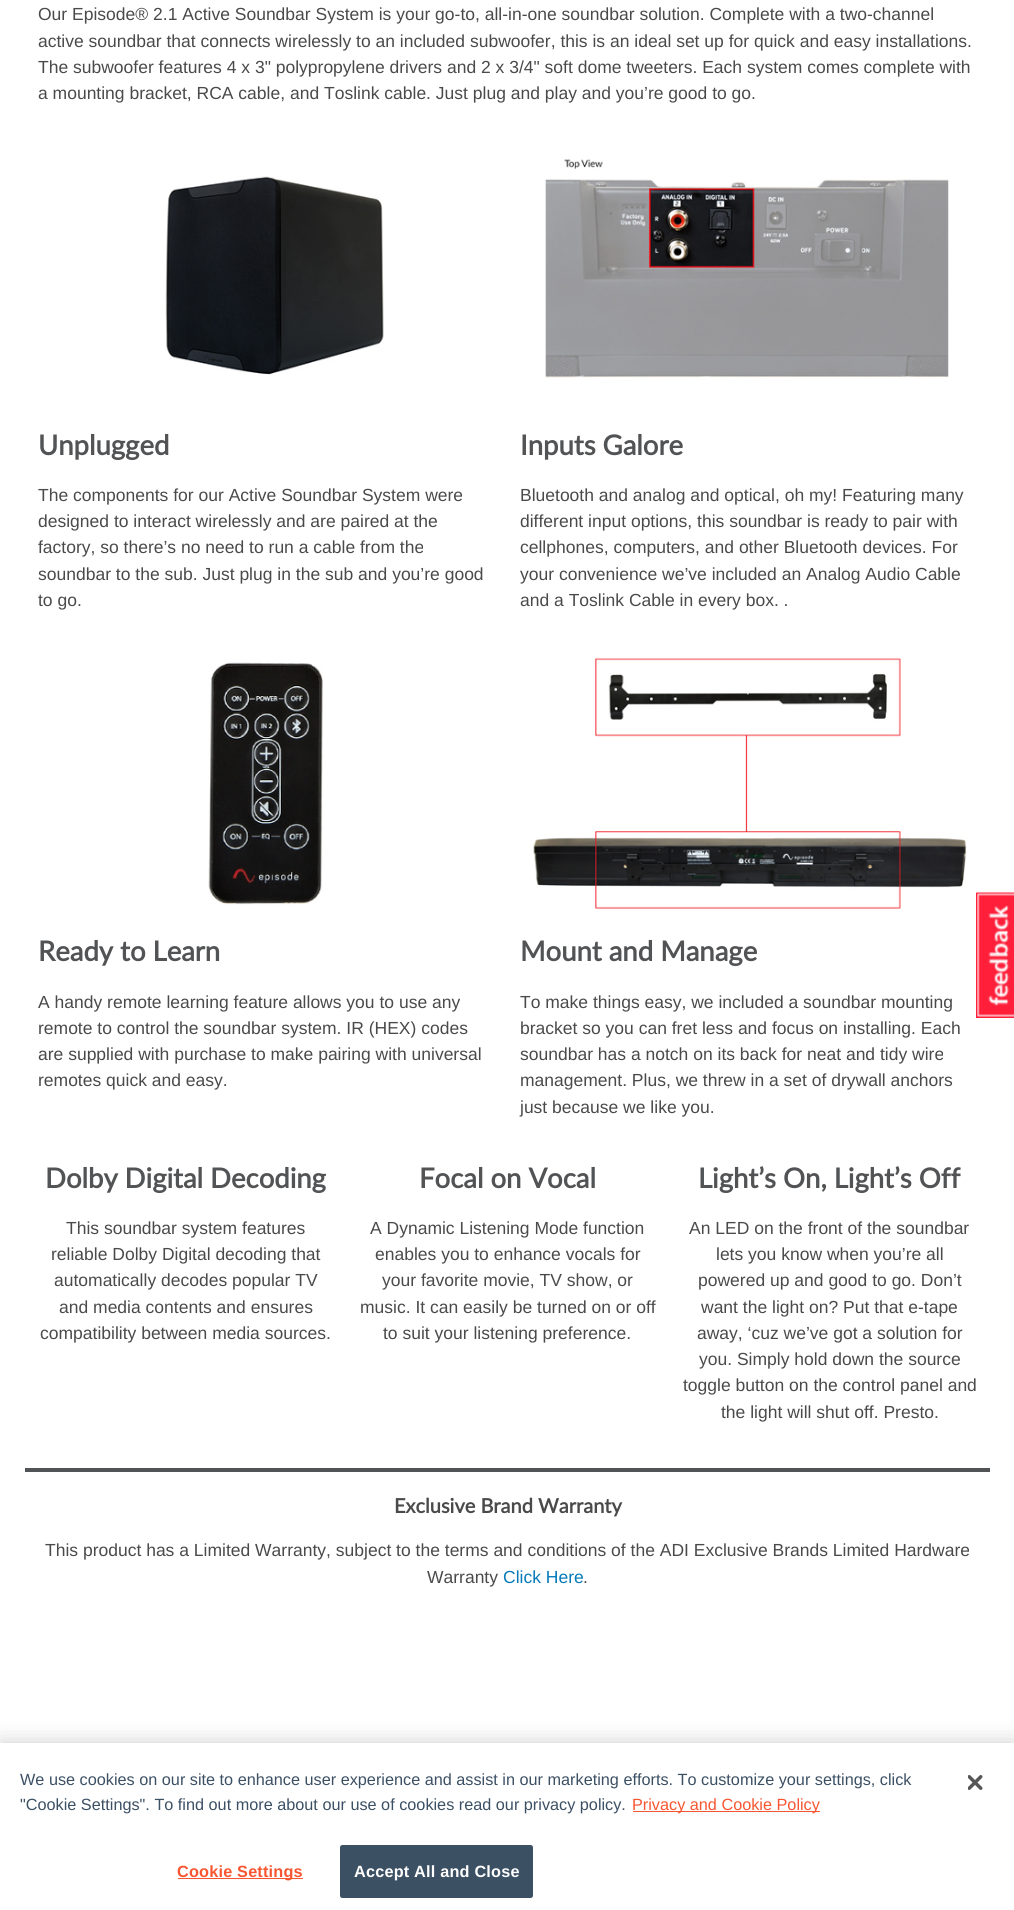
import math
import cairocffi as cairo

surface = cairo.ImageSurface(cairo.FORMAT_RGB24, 1014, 1910)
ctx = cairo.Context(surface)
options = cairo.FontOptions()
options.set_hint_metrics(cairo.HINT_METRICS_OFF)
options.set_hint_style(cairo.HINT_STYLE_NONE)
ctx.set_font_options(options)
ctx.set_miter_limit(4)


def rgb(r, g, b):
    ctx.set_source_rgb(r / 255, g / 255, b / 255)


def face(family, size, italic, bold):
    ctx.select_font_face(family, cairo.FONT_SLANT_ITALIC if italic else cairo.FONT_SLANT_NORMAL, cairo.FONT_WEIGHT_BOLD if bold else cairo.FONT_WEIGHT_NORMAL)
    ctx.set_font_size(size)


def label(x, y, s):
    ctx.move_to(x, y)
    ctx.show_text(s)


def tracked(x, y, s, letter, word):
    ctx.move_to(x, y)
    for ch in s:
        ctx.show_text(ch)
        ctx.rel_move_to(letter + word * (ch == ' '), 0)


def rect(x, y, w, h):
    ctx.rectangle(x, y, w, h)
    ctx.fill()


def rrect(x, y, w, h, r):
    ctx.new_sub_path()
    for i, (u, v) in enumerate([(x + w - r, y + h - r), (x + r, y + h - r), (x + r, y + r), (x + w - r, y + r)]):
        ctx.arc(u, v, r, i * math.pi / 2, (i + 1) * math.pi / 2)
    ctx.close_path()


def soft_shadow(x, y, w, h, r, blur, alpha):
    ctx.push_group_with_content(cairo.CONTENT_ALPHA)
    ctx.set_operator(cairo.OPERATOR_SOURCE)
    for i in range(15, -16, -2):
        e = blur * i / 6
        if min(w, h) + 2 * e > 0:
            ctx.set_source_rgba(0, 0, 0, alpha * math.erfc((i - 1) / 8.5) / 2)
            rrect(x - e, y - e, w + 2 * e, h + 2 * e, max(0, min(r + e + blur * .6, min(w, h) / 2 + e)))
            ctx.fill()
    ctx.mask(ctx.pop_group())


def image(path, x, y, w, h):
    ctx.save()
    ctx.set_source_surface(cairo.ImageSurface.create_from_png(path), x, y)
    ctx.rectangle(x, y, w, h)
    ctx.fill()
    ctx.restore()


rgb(255, 255, 255)
ctx.paint()
rgb(82, 83, 85)
rect(25, 1468, 965, 4)
face('Liberation Sans', 17.5, 0, 0)
rgb(74, 74, 74)
label(38, 20, 'Our Episode® 2.1 Active Soundbar System is your go-to, all-in-one soundbar solution. Complete with a two-channel')
label(38, 47, 'active soundbar that connects wirelessly to an included subwoofer, this is an ideal set up for quick and easy installations.')
label(38, 73, 'The subwoofer features 4 x 3" polypropylene drivers and 2 x 3/4" soft dome tweeters. Each system comes complete with')
label(38, 99, 'a mounting bracket, RCA cable, and Toslink cable. Just plug and play and you’re good to go.')
image('image0.png', 165, 176, 219, 199)
face('Lato', 27.5, 0, 1)
rgb(82, 83, 85)
label(38, 455, 'Unplugged')
face('Liberation Sans', 17.5, 0, 0)
rgb(74, 74, 74)
label(38, 501, 'The components for our Active Soundbar System were')
label(38, 527, 'designed to interact wirelessly and are paired at the')
label(38, 553, 'factory, so there’s no need to run a cable from the')
label(38, 580, 'soundbar to the sub. Just plug in the sub and you’re good')
label(38, 606, 'to go.')
image('image1.png', 545, 159, 404, 219)
face('Lato', 27.5, 0, 1)
rgb(82, 83, 85)
label(520, 455, 'Inputs Galore')
face('Liberation Sans', 17.5, 0, 0)
rgb(74, 74, 74)
label(520, 501, 'Bluetooth and analog and optical, oh my! Featuring many')
label(520, 527, 'different input options, this soundbar is ready to pair with')
label(520, 553, 'cellphones, computers, and other Bluetooth devices. For')
label(520, 580, 'your convenience we’ve included an Analog Audio Cable')
label(520, 606, 'and a Toslink Cable in every box. .')
image('image2.png', 208, 662, 115, 243)
face('Lato', 27.5, 0, 1)
rgb(82, 83, 85)
label(38, 961, 'Ready to Learn')
face('Liberation Sans', 17.5, 0, 0)
rgb(74, 74, 74)
label(38, 1008, 'A handy remote learning feature allows you to use any')
label(38, 1034, 'remote to control the soundbar system. IR (HEX) codes')
label(38, 1060, 'are supplied with purchase to make pairing with universal')
label(38, 1086, 'remotes quick and easy.')
image('image3.png', 533, 657, 434, 252)
face('Lato', 27.5, 0, 1)
rgb(82, 83, 85)
label(520, 961, 'Mount and Manage')
face('Liberation Sans', 17.5, 0, 0)
rgb(74, 74, 74)
label(520, 1008, 'To make things easy, we included a soundbar mounting')
label(520, 1034, 'bracket so you can fret less and focus on installing. Each')
label(520, 1060, 'soundbar has a notch on its back for neat and tidy wire')
label(520, 1086, 'management. Plus, we threw in a set of drywall anchors')
label(520, 1113, 'just because we like you.')
face('Lato', 27.5, 0, 1)
rgb(82, 83, 85)
label(45, 1188, 'Dolby Digital Decoding')
face('Liberation Sans', 17.5, 0, 0)
rgb(74, 74, 74)
label(66, 1234, 'This soundbar system features')
label(51, 1260, 'reliable Dolby Digital decoding that')
label(54, 1286, 'automatically decodes popular TV')
label(59, 1313, 'and media contents and ensures')
label(40, 1339, 'compatibility between media sources.')
face('Lato', 27.5, 0, 1)
rgb(82, 83, 85)
label(419, 1188, 'Focal on Vocal')
face('Liberation Sans', 17.5, 0, 0)
rgb(74, 74, 74)
label(370, 1234, 'A Dynamic Listening Mode function')
label(375, 1260, 'enables you to enhance vocals for')
label(382, 1286, 'your favorite movie, TV show, or')
label(360, 1313, 'music. It can easily be turned on or off')
label(383, 1339, 'to suit your listening preference.')
face('Lato', 27.5, 0, 1)
rgb(82, 83, 85)
label(698, 1188, 'Light’s On, Light’s Off')
face('Liberation Sans', 17.5, 0, 0)
rgb(74, 74, 74)
label(689, 1234, 'An LED on the front of the soundbar')
label(716, 1260, 'lets you know when you’re all')
label(698, 1286, 'powered up and good to go. Don’t')
label(701, 1313, 'want the light on? Put that e-tape')
label(697, 1339, 'away, ‘cuz we’ve got a solution for')
label(699, 1365, 'you. Simply hold down the source')
label(683, 1391, 'toggle button on the control panel and')
label(721, 1418, 'the light will shut off. Presto.')
face('Lato', 20, 0, 1)
label(394, 1513, 'Exclusive Brand Warranty')
face('Liberation Sans', 17.5, 0, 0)
label(45, 1556, 'This product has a Limited Warranty, subject to the terms and conditions of the ADI Exclusive Brands Limited Hardware')
label(427, 1583, 'Warranty')
rgb(5, 122, 185)
label(503, 1583, 'Click Here')
rgb(74, 74, 74)
label(583, 1583, '.')
rgb(255, 31, 58)
rect(976, 893, 38, 125)
image('image4.png', 976, 892, 38, 125)
rgb(0, 0, 0)
soft_shadow(0, 1743, 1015, 167, 0, 11, 0.2)
rgb(255, 255, 255)
rect(0, 1743, 1014, 167)
face('Liberation Sans', 16.25, 0, 0)
rgb(60, 80, 100)
label(20, 1785, 'We use cookies on our site to enhance user experience and assist in our marketing efforts. To customize your settings, click')
label(20, 1810, '"Cookie Settings". To find out more about our use of cookies read our privacy policy.')
rgb(247, 86, 49)
rect(633, 1811, 187, 1)
label(632, 1810, 'Privacy and Cookie Policy')
rect(178, 1878, 125, 1)
face('Liberation Sans', 16.25, 0, 1)
tracked(177, 1877, 'Cookie Settings', 0.2, 0)
rgb(60, 80, 100)
rrect(340.5, 1845.5, 192, 52, 2)
ctx.fill_preserve()
ctx.set_line_width(1)
ctx.stroke()
rgb(255, 255, 255)
tracked(354, 1877, 'Accept All and Close', 0.2, 0)
image('image5.png', 968, 1775, 15, 15)
surface.write_to_png('render.png')
